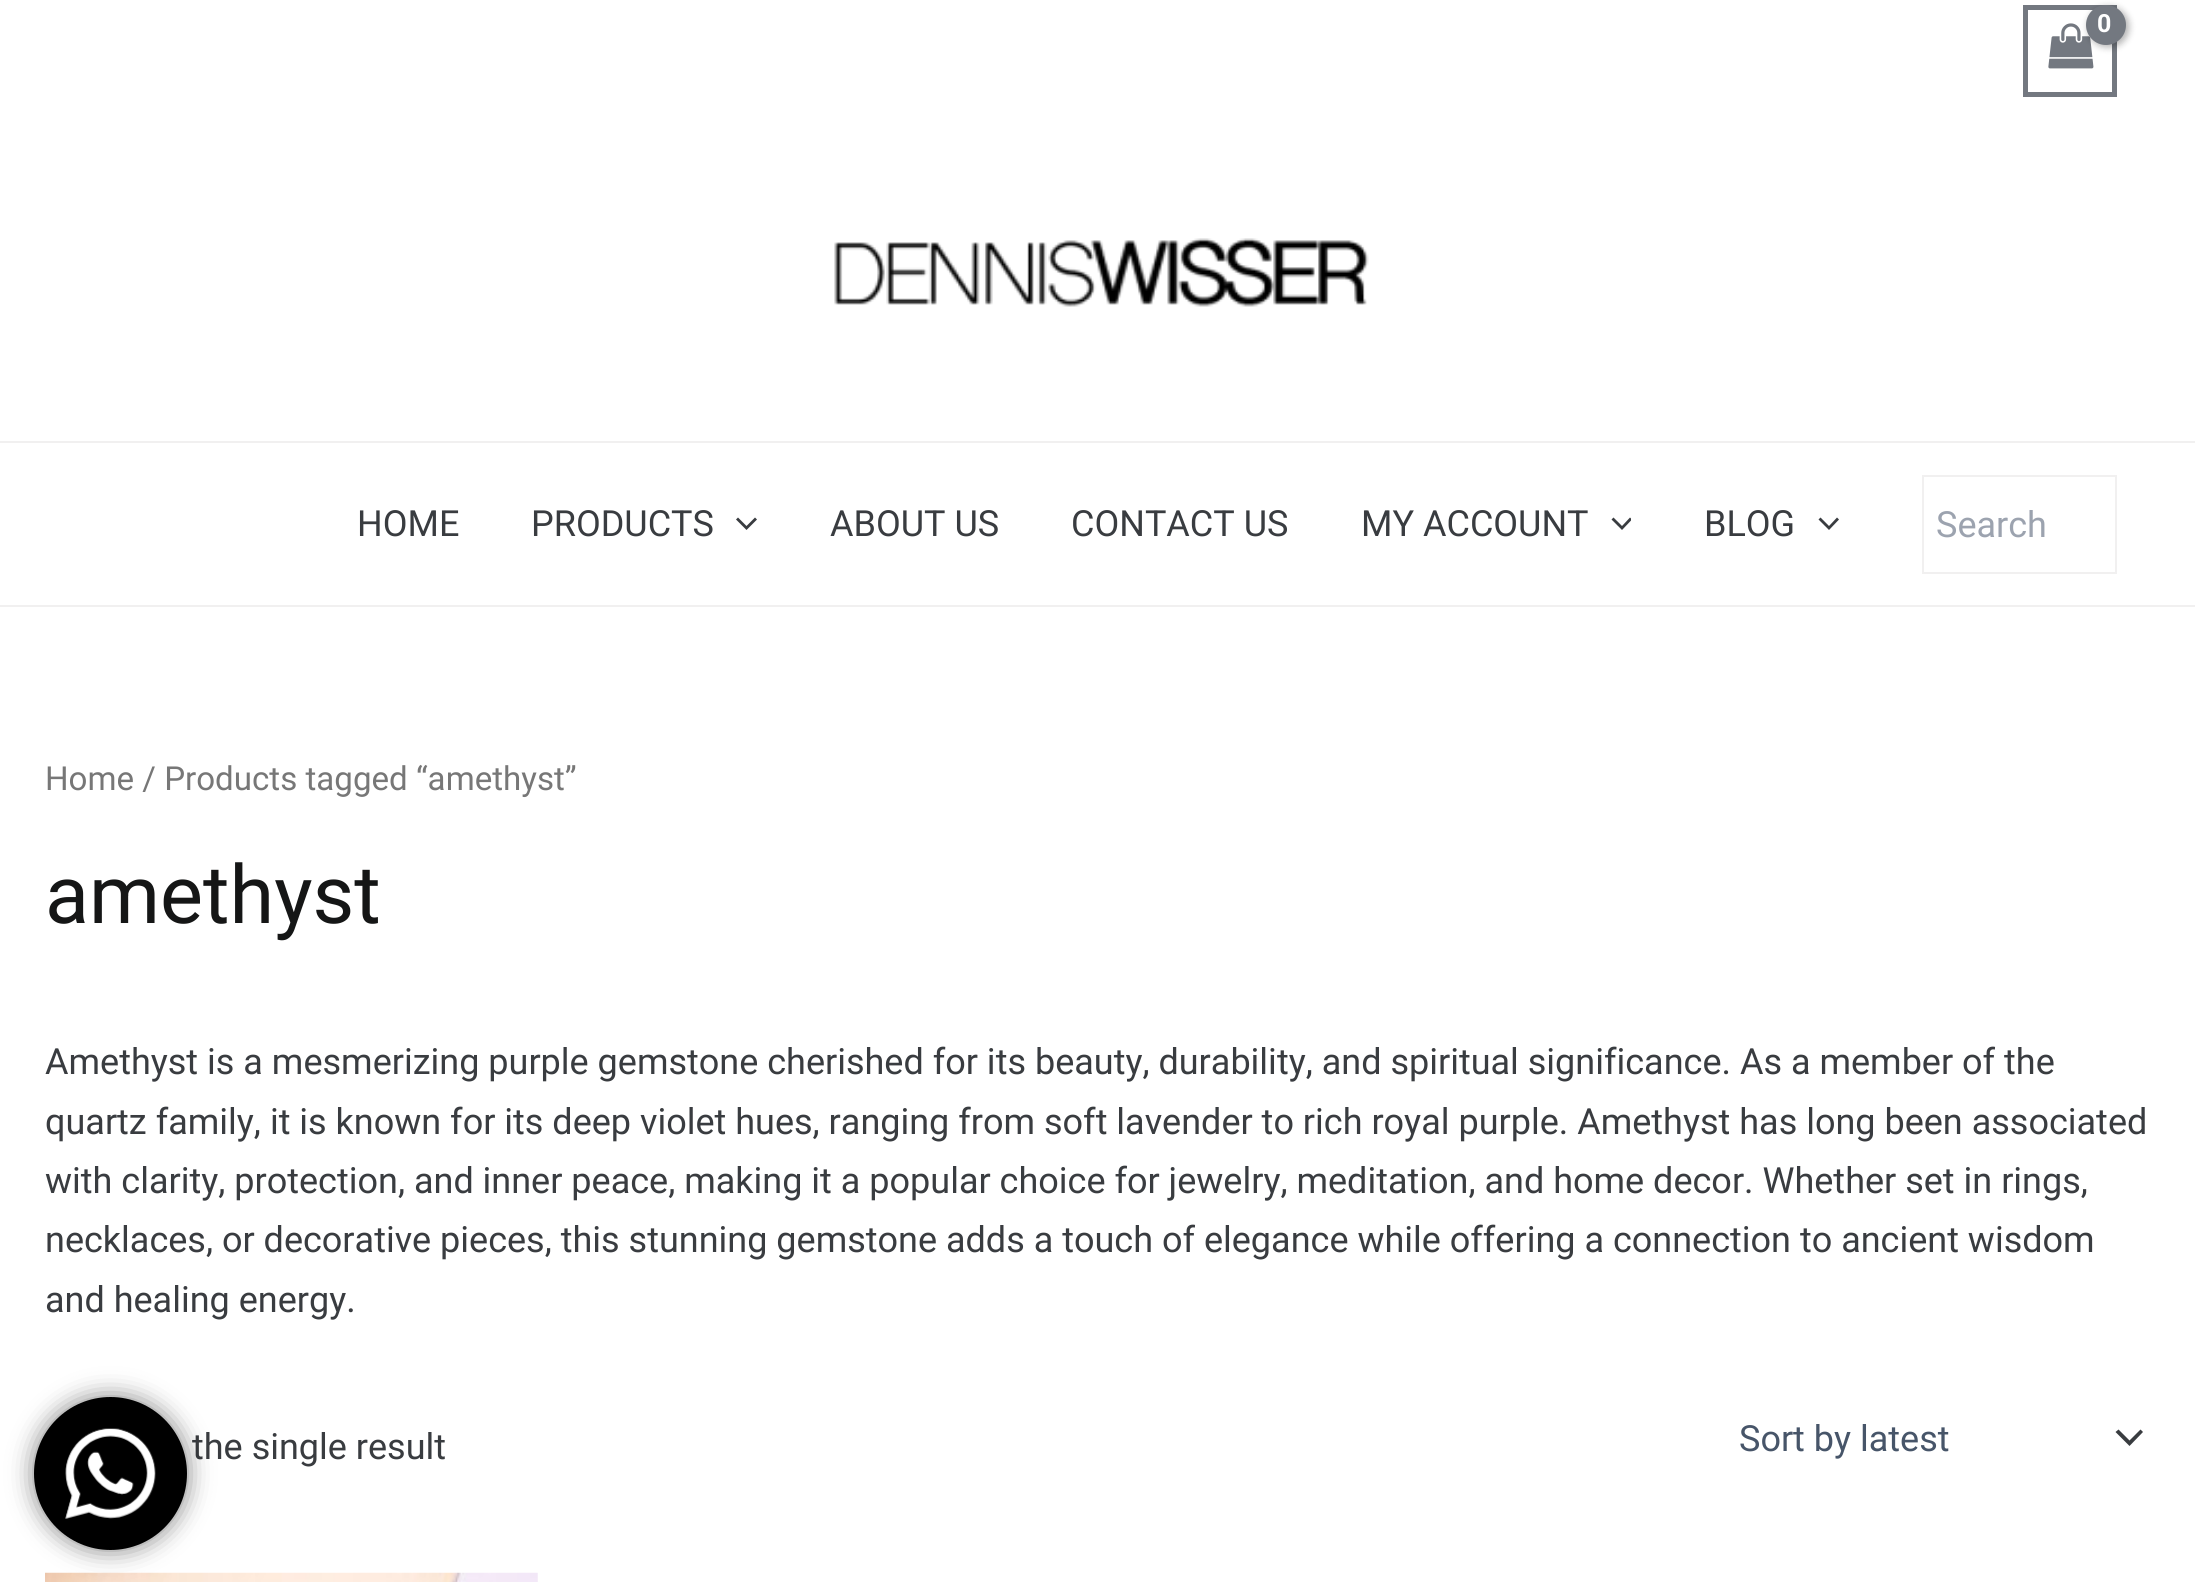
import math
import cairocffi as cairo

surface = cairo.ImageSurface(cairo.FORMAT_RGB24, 2195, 1582)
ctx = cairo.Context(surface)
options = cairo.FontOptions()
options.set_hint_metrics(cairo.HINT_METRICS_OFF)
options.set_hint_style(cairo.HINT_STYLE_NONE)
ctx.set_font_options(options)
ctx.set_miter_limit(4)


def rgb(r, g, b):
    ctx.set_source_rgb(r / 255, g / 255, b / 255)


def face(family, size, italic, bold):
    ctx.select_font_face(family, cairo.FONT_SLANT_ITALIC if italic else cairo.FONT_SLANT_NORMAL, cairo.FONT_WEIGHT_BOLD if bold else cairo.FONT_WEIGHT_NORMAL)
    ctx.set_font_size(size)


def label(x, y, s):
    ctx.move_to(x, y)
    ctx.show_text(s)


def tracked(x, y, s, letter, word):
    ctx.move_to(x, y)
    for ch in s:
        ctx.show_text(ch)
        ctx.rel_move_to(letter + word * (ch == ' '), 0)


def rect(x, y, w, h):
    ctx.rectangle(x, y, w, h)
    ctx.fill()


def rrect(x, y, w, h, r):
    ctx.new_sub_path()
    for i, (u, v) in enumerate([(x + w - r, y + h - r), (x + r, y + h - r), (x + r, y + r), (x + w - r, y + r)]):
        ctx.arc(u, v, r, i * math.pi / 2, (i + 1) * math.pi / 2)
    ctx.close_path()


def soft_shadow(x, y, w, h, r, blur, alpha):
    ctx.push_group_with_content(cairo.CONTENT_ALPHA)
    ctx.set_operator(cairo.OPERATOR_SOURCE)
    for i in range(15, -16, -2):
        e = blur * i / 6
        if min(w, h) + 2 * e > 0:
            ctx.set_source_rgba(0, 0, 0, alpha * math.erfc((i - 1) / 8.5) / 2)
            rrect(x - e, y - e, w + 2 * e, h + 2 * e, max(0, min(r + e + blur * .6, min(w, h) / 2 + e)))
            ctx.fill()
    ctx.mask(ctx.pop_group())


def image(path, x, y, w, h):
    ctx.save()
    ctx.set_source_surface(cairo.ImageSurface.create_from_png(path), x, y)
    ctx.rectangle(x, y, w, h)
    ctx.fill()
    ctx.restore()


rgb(255, 255, 255)
ctx.paint()
ctx.rectangle(2025.5, 7.5, 89, 87)
rgb(115, 120, 128)
ctx.set_line_width(5)
ctx.stroke()
image('image0.png', 2048, 23, 46, 46)
rgb(0, 0, 0)
soft_shadow(2088, 7, 41, 40, 20, 3.5, 0.3)
rgb(115, 120, 128)
ctx.arc(2106, 25, 20, 0, 2 * math.pi)
ctx.fill()
face('Roboto', 25, 0, 1)
rgb(255, 255, 255)
tracked(2097, 32, '0', -1, 0)
rgb(241, 240, 240)
rect(0, 441, 2195, 2)
image('image1.png', 834, 238, 535, 69)
rect(0, 605, 2195, 2)
face('Roboto', 36, 0, 0)
rgb(57, 60, 64)
label(357, 536, 'HOME')
label(531, 536, 'PRODUCTS')
ctx.new_path()
ctx.move_to(736, 519.5)
ctx.line_to(746.5, 530)
ctx.line_to(757, 519.5)
ctx.line_to(755, 517.5)
ctx.line_to(746.5, 526)
ctx.line_to(738, 517.5)
ctx.close_path()
ctx.fill()
label(830, 536, 'ABOUT US')
label(1071, 536, 'CONTACT US')
label(1361, 536, 'MY ACCOUNT')
ctx.save()
ctx.rectangle(1611, 513, 20, 23)
ctx.clip()
ctx.new_path()
ctx.move_to(1611.5, 519.5)
ctx.line_to(1622, 530)
ctx.line_to(1632, 519.5)
ctx.line_to(1630, 517.5)
ctx.line_to(1622, 526)
ctx.line_to(1613.5, 517.5)
ctx.close_path()
ctx.fill()
ctx.restore()
label(1704, 536, 'BLOG')
ctx.new_path()
ctx.move_to(1818.5, 519.5)
ctx.line_to(1829, 530)
ctx.line_to(1839, 519.5)
ctx.line_to(1837, 517.5)
ctx.line_to(1829, 526)
ctx.line_to(1820.5, 517.5)
ctx.close_path()
ctx.fill()
ctx.rectangle(1923, 476, 193, 97)
rgb(241, 240, 240)
ctx.set_line_width(2)
ctx.stroke()
rgb(156, 163, 175)
label(1936, 537, 'Search')
face('Roboto', 33.1, 0, 0)
rgb(119, 119, 119)
label(45, 790, 'Home / Products tagged “amethyst”')
face('Roboto', 81, 0, 0)
rgb(21, 22, 22)
label(45, 923, 'amethyst')
face('Roboto', 36, 0, 0)
rgb(57, 60, 64)
label(45, 1074, 'Amethyst is a mesmerizing purple gemstone cherished for its beauty, durability, and spiritual significance. As a member of the')
label(45, 1134, 'quartz family, it is known for its deep violet hues, ranging from soft lavender to rich royal purple. Amethyst has long been associated')
label(45, 1193, 'with clarity, protection, and inner peace, making it a popular choice for jewelry, meditation, and home decor. Whether set in rings,')
label(45, 1252, 'necklaces, or decorative pieces, this stunning gemstone adds a touch of elegance while offering a connection to ancient wisdom')
label(45, 1312, 'and healing energy.')
label(192, 1459, 'the single result')
ctx.new_path()
ctx.move_to(2115.5, 1432)
ctx.line_to(2129.5, 1446)
ctx.line_to(2143, 1432)
ctx.line_to(2140.5, 1429.5)
ctx.line_to(2129.5, 1440.5)
ctx.line_to(2118.5, 1429.5)
ctx.close_path()
ctx.fill()
rgb(71, 85, 105)
label(1739, 1451, 'Sort by latest')
image('image2.png', 45, 1572, 493, 10)
rgb(0, 0, 0)
soft_shadow(34, 1397, 153, 153, 76.5, 12.5, 0.5)
rgb(0, 0, 0)
ctx.arc(110.5, 1473.5, 76.5, 0, 2 * math.pi)
ctx.fill()
image('image3.png', 65, 1428, 91, 91)
surface.write_to_png('render.png')
